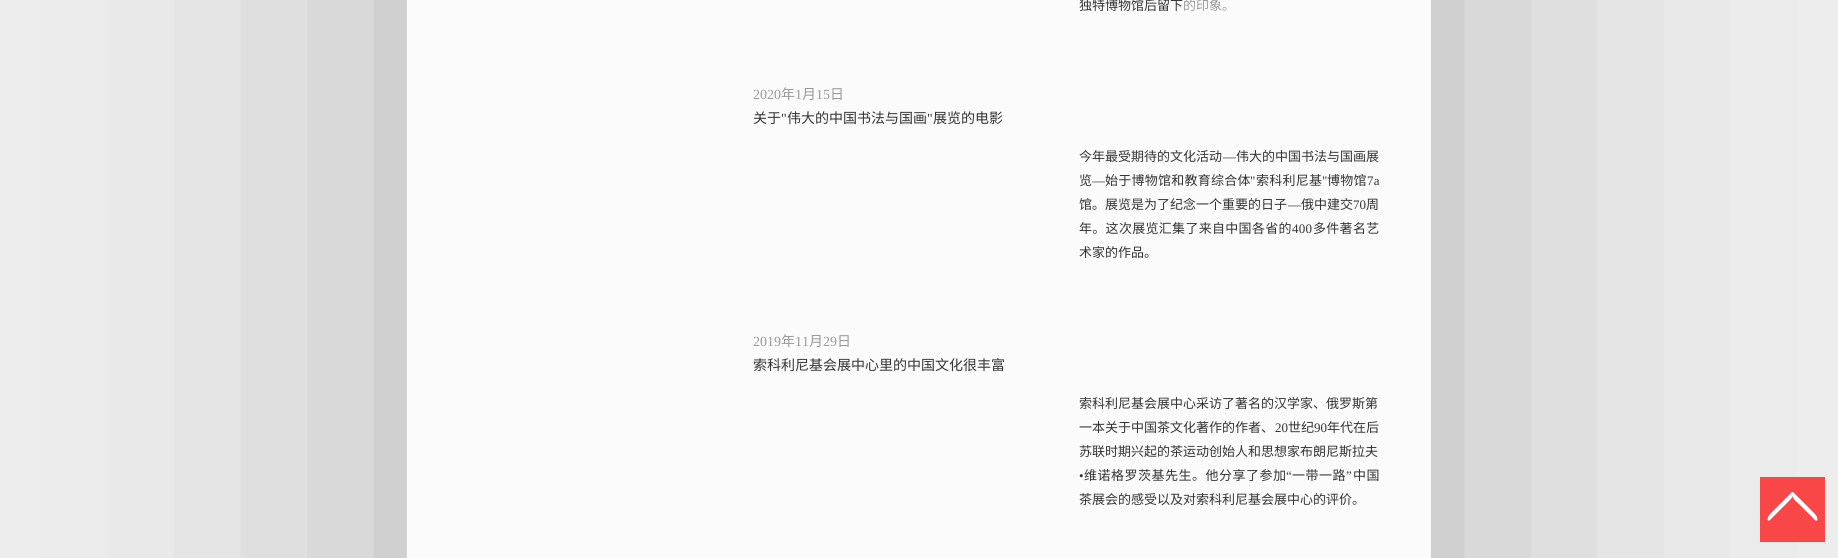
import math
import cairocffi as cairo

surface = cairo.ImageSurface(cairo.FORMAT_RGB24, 1838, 558)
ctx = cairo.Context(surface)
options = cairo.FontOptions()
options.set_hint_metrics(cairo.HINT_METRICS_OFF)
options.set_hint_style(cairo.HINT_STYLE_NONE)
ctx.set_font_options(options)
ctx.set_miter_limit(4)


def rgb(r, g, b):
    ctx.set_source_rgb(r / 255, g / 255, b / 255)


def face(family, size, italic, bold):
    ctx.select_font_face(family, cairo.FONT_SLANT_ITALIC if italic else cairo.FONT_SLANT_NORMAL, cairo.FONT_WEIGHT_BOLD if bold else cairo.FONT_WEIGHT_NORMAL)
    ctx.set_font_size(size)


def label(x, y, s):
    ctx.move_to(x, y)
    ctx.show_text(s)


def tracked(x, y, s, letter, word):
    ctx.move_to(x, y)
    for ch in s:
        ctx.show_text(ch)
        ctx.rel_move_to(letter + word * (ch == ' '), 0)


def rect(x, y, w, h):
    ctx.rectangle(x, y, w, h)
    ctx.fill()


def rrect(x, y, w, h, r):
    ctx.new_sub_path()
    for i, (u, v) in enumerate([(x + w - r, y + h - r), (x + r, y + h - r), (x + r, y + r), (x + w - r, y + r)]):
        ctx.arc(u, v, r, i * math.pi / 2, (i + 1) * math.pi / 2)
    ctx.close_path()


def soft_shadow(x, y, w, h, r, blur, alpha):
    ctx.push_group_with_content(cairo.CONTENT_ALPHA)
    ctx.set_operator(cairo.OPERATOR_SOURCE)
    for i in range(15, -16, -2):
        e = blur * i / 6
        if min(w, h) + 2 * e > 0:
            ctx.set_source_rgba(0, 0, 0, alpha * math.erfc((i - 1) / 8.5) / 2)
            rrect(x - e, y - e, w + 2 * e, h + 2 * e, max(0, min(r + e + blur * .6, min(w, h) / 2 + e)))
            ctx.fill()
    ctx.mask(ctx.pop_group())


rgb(238, 238, 238)
ctx.paint()
rgb(0, 0, 0)
soft_shadow(407, -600, 1024, 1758, 0, 200, 0.25)
rgb(251, 251, 251)
rect(407, 0, 1024, 558)
face('Noto Sans CJK SC', 13, 0, 0)
rgb(51, 51, 51)
label(1079, 10, '独特博物馆后留下')
rgb(153, 153, 153)
label(1183, 10, '的印象。')
face('Liberation Serif', 14, 0, 0)
label(753, 99, '2020')
face('Noto Sans CJK SC', 14, 0, 0)
label(781, 99, '年')
face('Liberation Serif', 14, 0, 0)
label(795, 99, '1')
face('Noto Sans CJK SC', 14, 0, 0)
label(802, 99, '月')
face('Liberation Serif', 14, 0, 0)
label(816, 99, '15')
face('Noto Sans CJK SC', 14, 0, 0)
label(830, 99, '日')
rgb(51, 51, 51)
label(753, 123, '关于')
face('Liberation Serif', 14, 0, 0)
label(781, 123, '"')
face('Noto Sans CJK SC', 14, 0, 0)
label(787, 123, '伟大的中国书法与国画')
face('Liberation Serif', 14, 0, 0)
label(927, 123, '"')
face('Noto Sans CJK SC', 14, 0, 0)
label(933, 123, '展览的电影')
face('Noto Sans CJK SC', 13, 0, 0)
label(1079, 161, '今年最受期待的文化活动')
face('Liberation Serif', 13, 0, 0)
label(1223, 161, '—')
face('Noto Sans CJK SC', 13, 0, 0)
label(1236, 161, '伟大的中国书法与国画展')
tracked(1079, 185, '览', 0.25, 0)
face('Liberation Serif', 13, 0, 0)
tracked(1092, 185, '—', 0.25, 0)
face('Noto Sans CJK SC', 13, 0, 0)
tracked(1105, 185, '始于博物馆和教育综合体', 0.25, 0)
face('Liberation Serif', 13, 0, 0)
tracked(1250, 185, '"', 0.25, 0)
face('Noto Sans CJK SC', 13, 0, 0)
tracked(1256, 185, '索科利尼基', 0.25, 0)
face('Liberation Serif', 13, 0, 0)
tracked(1322, 185, '"', 0.25, 0)
face('Noto Sans CJK SC', 13, 0, 0)
tracked(1327, 185, '博物馆', 0.25, 0)
face('Liberation Serif', 13, 0, 0)
tracked(1367, 185, '7a', 0.25, 0)
face('Noto Sans CJK SC', 13, 0, 0)
label(1079, 209, '馆。展览是为了纪念一个重要的日子')
face('Liberation Serif', 13, 0, 0)
label(1288, 209, '—')
face('Noto Sans CJK SC', 13, 0, 0)
label(1301, 209, '俄中建交')
face('Liberation Serif', 13, 0, 0)
label(1353, 209, '70')
face('Noto Sans CJK SC', 13, 0, 0)
label(1366, 209, '周')
tracked(1079, 233, '年。这次展览汇集了来自中国各省的', 0.3, 0)
face('Liberation Serif', 13, 0, 0)
tracked(1292, 233, '400', 0.3, 0)
face('Noto Sans CJK SC', 13, 0, 0)
tracked(1313, 233, '多件著名艺', 0.3, 0)
label(1079, 257, '术家的作品。')
face('Liberation Serif', 14, 0, 0)
rgb(153, 153, 153)
label(753, 346, '2019')
face('Noto Sans CJK SC', 14, 0, 0)
label(781, 346, '年')
face('Liberation Serif', 14, 0, 0)
label(795, 346, '11')
face('Noto Sans CJK SC', 14, 0, 0)
label(809, 346, '月')
face('Liberation Serif', 14, 0, 0)
label(823, 346, '29')
face('Noto Sans CJK SC', 14, 0, 0)
label(837, 346, '日')
rgb(51, 51, 51)
label(753, 370, '索科利尼基会展中心里的中国文化很丰富')
face('Noto Sans CJK SC', 13, 0, 0)
label(1079, 408, '索科利尼基会展中心采访了著名的汉学家、俄罗斯第')
label(1079, 432, '一本关于中国茶文化著作的作者、')
face('Liberation Serif', 13, 0, 0)
label(1275, 432, '20')
face('Noto Sans CJK SC', 13, 0, 0)
label(1288, 432, '世纪')
face('Liberation Serif', 13, 0, 0)
label(1314, 432, '90')
face('Noto Sans CJK SC', 13, 0, 0)
label(1327, 432, '年代在后')
label(1079, 456, '苏联时期兴起的茶运动创始人和思想家布朗尼斯拉夫')
tracked(1084, 480, '维诺格罗茨基先生。他分享了参加', 0.5, 0)
face('Liberation Serif', 13, 0, 0)
tracked(1286, 480, '“', 0.5, 0)
face('Noto Sans CJK SC', 13, 0, 0)
tracked(1292, 480, '一带一路', 0.5, 0)
face('Liberation Serif', 13, 0, 0)
tracked(1346, 480, '”', 0.5, 0)
face('Noto Sans CJK SC', 13, 0, 0)
tracked(1353, 480, '中国', 0.5, 0)
face('Liberation Serif', 13, 0, 0)
tracked(1079, 480, '•', 0.5, 0)
face('Noto Sans CJK SC', 13, 0, 0)
label(1079, 504, '茶展会的感受以及对索科利尼基会展中心的评价。')
rgb(249, 71, 71)
rect(1760, 477, 65, 65)
rgb(255, 255, 255)
ctx.new_path()
ctx.move_to(1794.5, 493.5)
ctx.line_to(1815, 514)
ctx.line_to(1817, 517)
ctx.curve_to(1817.5, 518.5, 1818, 521.5, 1815.5, 520.5)
ctx.line_to(1801, 506)
ctx.curve_to(1798, 503, 1792.5, 499, 1791.5, 494)
ctx.curve_to(1791, 491.5, 1793, 492, 1794.5, 493.5)
ctx.close_path()
ctx.fill()
ctx.new_path()
ctx.move_to(1770.5, 513.5)
ctx.line_to(1790.5, 493.5)
ctx.curve_to(1792, 491.5, 1793.5, 491.5, 1793.5, 493.5)
ctx.curve_to(1793.5, 495, 1792, 497.5, 1790.5, 499.5)
ctx.line_to(1770.5, 519.5)
ctx.curve_to(1769, 521, 1767.5, 521, 1767.5, 519.5)
ctx.curve_to(1767.5, 517.5, 1769, 515, 1770.5, 513.5)
ctx.close_path()
ctx.fill()
surface.write_to_png('render.png')
